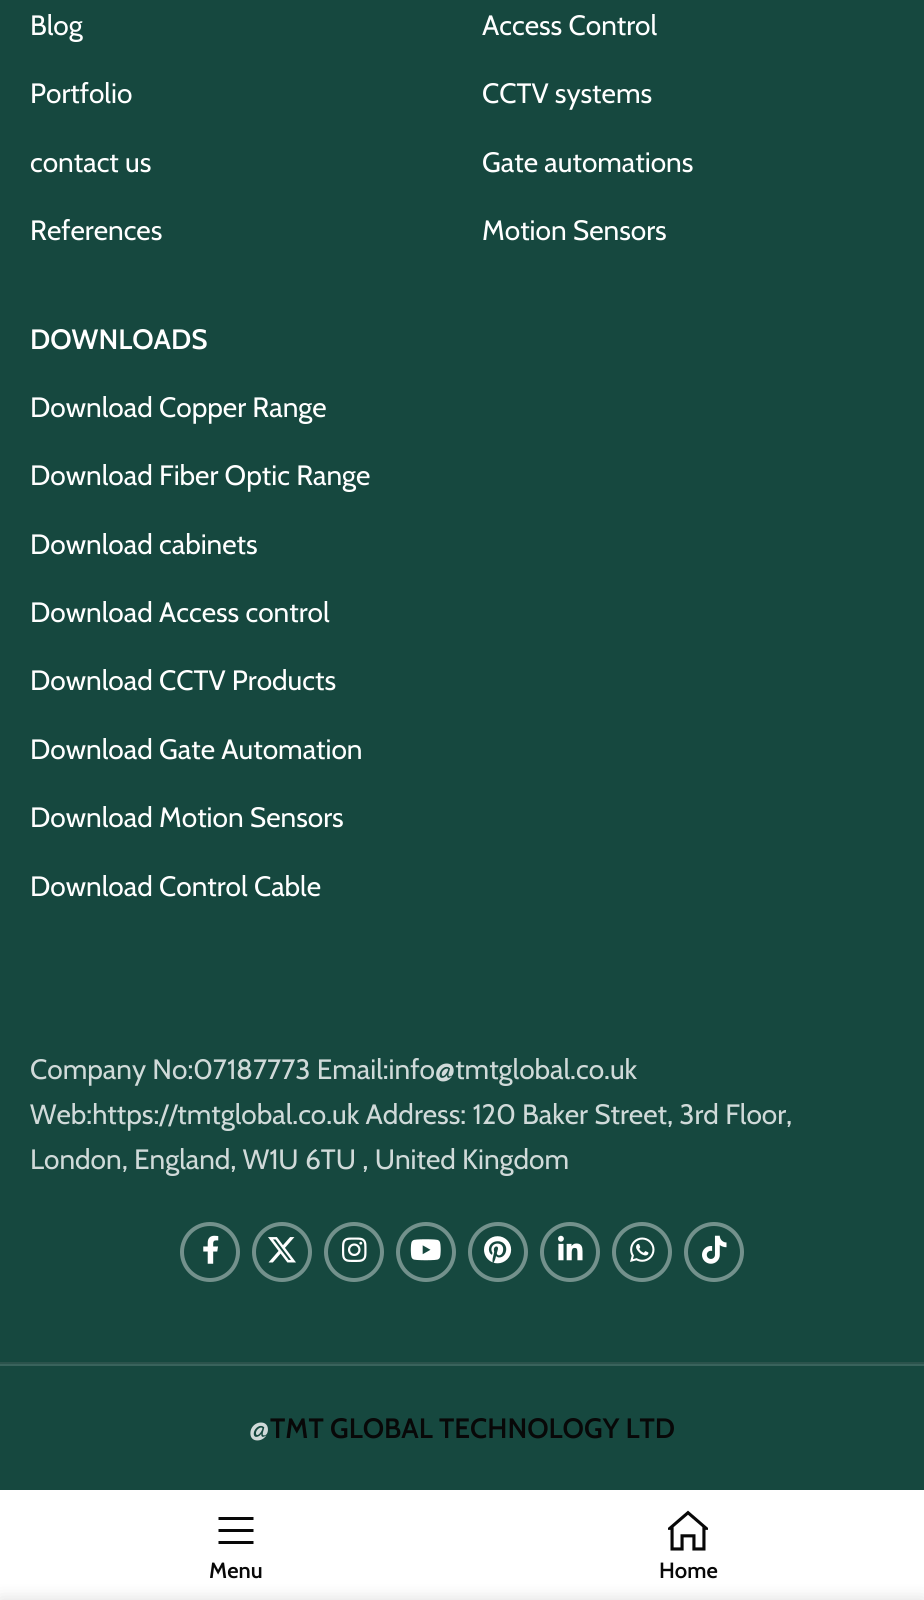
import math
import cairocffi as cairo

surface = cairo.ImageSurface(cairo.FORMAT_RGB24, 924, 1600)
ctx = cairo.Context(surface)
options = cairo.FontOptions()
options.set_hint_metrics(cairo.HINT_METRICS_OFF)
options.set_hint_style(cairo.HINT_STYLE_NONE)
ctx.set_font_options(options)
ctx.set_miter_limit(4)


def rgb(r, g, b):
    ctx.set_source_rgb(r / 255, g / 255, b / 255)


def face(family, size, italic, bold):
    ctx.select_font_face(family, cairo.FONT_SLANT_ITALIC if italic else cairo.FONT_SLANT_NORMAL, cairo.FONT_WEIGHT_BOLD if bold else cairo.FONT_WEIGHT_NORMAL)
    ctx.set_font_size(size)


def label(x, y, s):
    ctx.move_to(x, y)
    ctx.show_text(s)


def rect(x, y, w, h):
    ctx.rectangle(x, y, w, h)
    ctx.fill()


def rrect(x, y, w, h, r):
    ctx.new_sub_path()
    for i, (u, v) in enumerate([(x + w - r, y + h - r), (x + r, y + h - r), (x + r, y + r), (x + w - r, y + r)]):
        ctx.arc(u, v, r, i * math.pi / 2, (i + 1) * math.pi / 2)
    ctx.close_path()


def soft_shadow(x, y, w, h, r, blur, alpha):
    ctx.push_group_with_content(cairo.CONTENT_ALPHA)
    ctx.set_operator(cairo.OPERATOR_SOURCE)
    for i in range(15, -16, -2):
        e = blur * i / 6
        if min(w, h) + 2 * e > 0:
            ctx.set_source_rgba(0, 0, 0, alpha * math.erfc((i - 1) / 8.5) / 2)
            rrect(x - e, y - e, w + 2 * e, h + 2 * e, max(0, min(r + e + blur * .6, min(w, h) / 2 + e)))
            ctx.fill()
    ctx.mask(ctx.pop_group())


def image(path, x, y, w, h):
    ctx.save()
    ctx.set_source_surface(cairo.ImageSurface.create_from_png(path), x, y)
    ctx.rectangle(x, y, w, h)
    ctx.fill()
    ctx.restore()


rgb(255, 255, 255)
ctx.paint()
rgb(22, 72, 63)
rect(0, 0, 924, 1490)
rgb(43, 83, 76)
rect(0, 1362, 924, 2)
face('Cabin', 28, 0, 0)
rgb(255, 255, 255)
label(30, 35, 'Blog')
label(30, 103, 'Portfolio')
label(30, 172, 'contact us')
label(30, 240, 'References')
label(482, 35, 'Access Control')
label(482, 103, 'CCTV systems')
label(482, 172, 'Gate automations')
label(482, 240, 'Motion Sensors')
face('Cabin SemiBold', 28, 0, 0)
label(30, 349, 'DOWNLOADS')
face('Cabin', 28, 0, 0)
label(30, 417, 'Download Copper Range')
label(30, 485, 'Download Fiber Optic Range')
label(30, 554, 'Download cabinets')
label(30, 622, 'Download Access control')
label(30, 690, 'Download CCTV Products')
label(30, 759, 'Download Gate Automation')
label(30, 827, 'Download Motion Sensors')
label(30, 896, 'Download Control Cable')
rgb(208, 218, 217)
label(30, 1079, 'Company No:07187773 Email:info@tmtglobal.co.uk')
label(30, 1124, 'Web:https://tmtglobal.co.uk Address: 120 Baker Street, 3rd Floor,')
label(30, 1169, 'London, England, W1U 6TU , United Kingdom')
ctx.new_path()
ctx.arc(210, 1252, 28, 0, 2 * math.pi)
rgb(115, 145, 140)
ctx.set_line_width(4)
ctx.stroke()
image('image0.png', 203, 1235, 16, 29)
ctx.arc(282, 1252, 28, 0, 2 * math.pi)
ctx.stroke()
image('image1.png', 268, 1237, 28, 26)
ctx.arc(354, 1252, 28, 0, 2 * math.pi)
ctx.stroke()
image('image2.png', 342, 1237, 25, 25)
ctx.arc(426, 1252, 28, 0, 2 * math.pi)
ctx.stroke()
image('image3.png', 410, 1239, 31, 22)
ctx.arc(498, 1252, 28, 0, 2 * math.pi)
ctx.stroke()
image('image4.png', 484, 1236, 28, 28)
ctx.arc(570, 1252, 28, 0, 2 * math.pi)
ctx.stroke()
image('image5.png', 558, 1235, 25, 26)
ctx.arc(642, 1252, 28, 0, 2 * math.pi)
ctx.stroke()
image('image6.png', 630, 1237, 25, 25)
ctx.arc(714, 1252, 28, 0, 2 * math.pi)
ctx.stroke()
image('image7.png', 702, 1235, 25, 29)
rgb(57, 99, 92)
rect(0, 1364, 924, 2)
rgb(208, 218, 217)
label(249, 1438, '@')
face('Cabin SemiBold', 28, 0, 0)
rgb(8, 8, 8)
label(270, 1438, 'TMT GLOBAL TECHNOLOGY LTD')
ctx.new_path()
ctx.move_to(218.5, 1520)
ctx.line_to(253.5, 1520)
ctx.line_to(253.5, 1517)
ctx.line_to(218.5, 1517)
ctx.close_path()
ctx.move_to(218.5, 1532)
ctx.line_to(253.5, 1532)
ctx.line_to(253.5, 1529)
ctx.line_to(218.5, 1529)
ctx.close_path()
ctx.move_to(218.5, 1544)
ctx.line_to(253.5, 1544)
ctx.line_to(253.5, 1541)
ctx.line_to(218.5, 1541)
ctx.close_path()
ctx.fill()
face('Cabin SemiBold', 22, 0, 0)
label(209, 1578, 'Menu')
image('image8.png', 668, 1510, 40, 41)
label(659, 1578, 'Home')
rgb(0, 0, 0)
soft_shadow(0, 1600, 924, 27, 0, 9, 0.14)
surface.write_to_png('render.png')
